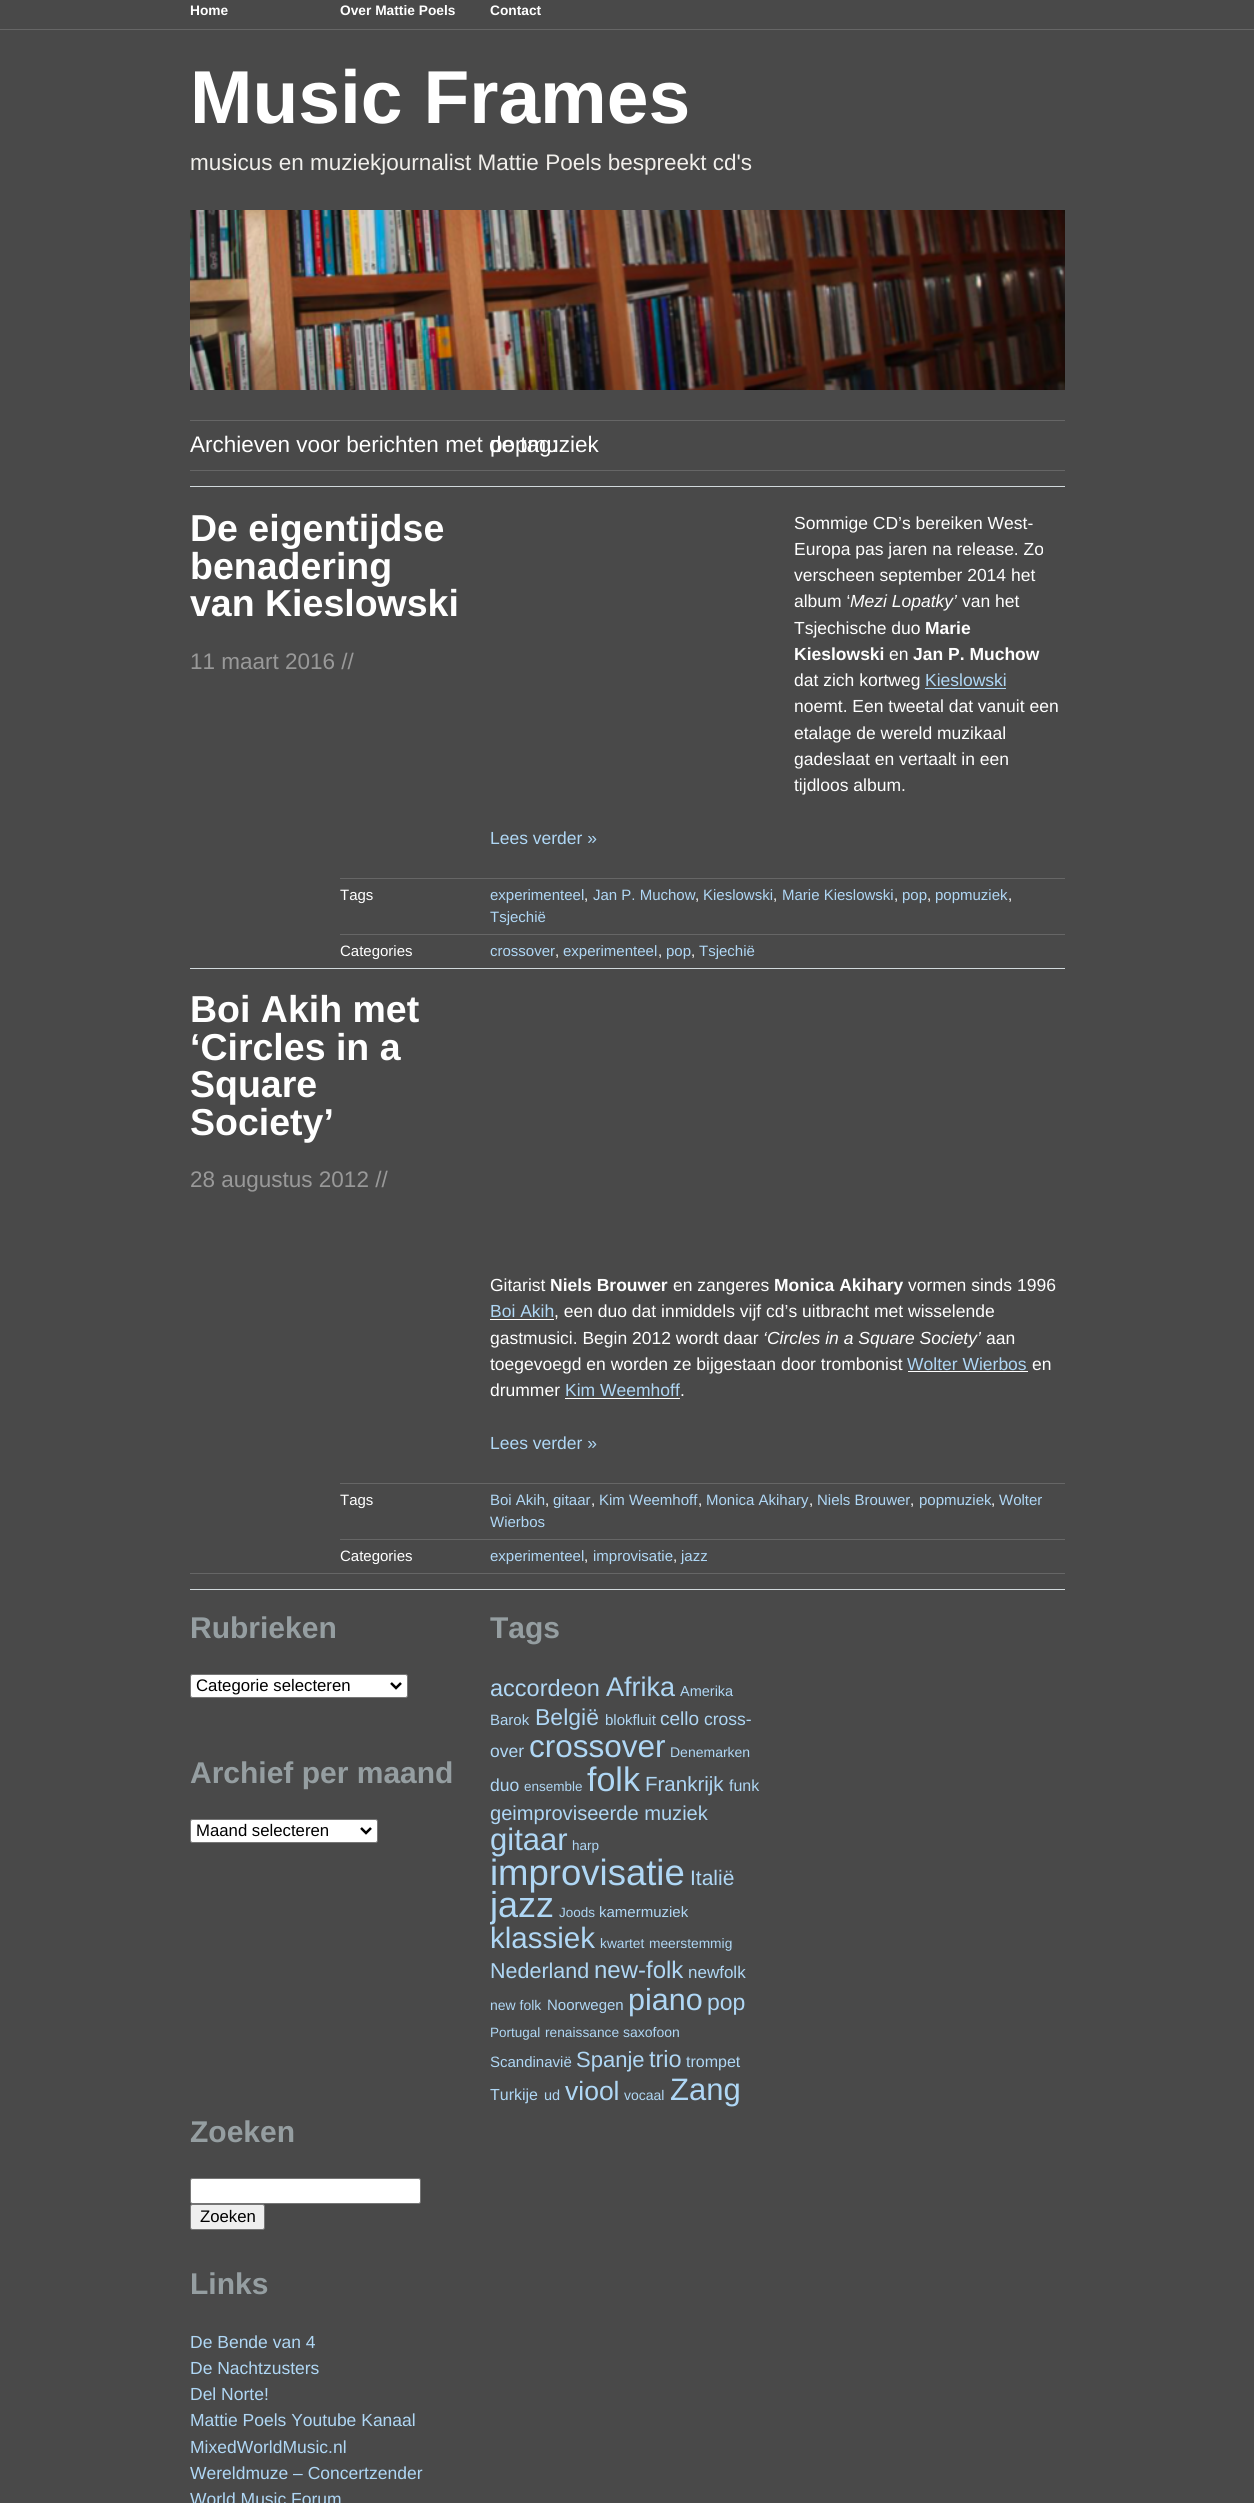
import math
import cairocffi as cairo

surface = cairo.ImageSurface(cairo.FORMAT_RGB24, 1254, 2503)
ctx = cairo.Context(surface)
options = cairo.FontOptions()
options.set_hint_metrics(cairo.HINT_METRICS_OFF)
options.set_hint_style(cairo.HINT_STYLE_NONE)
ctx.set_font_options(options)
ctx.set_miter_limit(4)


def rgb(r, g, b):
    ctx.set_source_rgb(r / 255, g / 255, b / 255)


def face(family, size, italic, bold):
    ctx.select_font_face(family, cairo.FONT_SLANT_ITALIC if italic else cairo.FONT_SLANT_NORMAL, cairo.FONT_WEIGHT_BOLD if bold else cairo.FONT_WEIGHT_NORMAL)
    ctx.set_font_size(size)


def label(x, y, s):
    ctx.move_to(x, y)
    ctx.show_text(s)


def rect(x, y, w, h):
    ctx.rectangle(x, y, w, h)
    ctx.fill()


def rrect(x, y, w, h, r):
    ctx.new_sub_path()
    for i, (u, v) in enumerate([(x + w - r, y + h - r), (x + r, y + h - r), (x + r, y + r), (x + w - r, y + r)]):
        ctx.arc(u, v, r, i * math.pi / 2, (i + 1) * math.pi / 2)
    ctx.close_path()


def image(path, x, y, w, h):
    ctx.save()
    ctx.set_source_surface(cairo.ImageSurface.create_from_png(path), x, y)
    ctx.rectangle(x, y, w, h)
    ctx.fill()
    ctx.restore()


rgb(73, 73, 73)
ctx.paint()
rgb(102, 102, 102)
rect(0, 29, 1254, 1)
face('Liberation Sans', 13.75, 0, 1)
rgb(255, 255, 255)
label(190, 15, 'Home')
label(340, 15, 'Over Mattie Poels')
label(490, 15, 'Contact')
face('Liberation Sans', 75, 0, 1)
label(190, 123, 'Music Frames')
face('Liberation Sans', 22.5, 0, 0)
rgb(241, 239, 235)
label(190, 170, 'musicus en muziekjournalist Mattie Poels bespreekt cd\'s')
image('image0.png', 190, 210, 875, 180)
rgb(102, 102, 102)
rect(190, 420, 875, 1)
rgb(255, 255, 255)
label(190, 452, 'Archieven voor berichten met de tag:')
label(490, 452, 'popmuziek')
rgb(102, 102, 102)
rect(190, 470, 875, 1)
rgb(209, 217, 220)
rect(190, 486, 875, 1)
face('Liberation Sans', 37.5, 0, 1)
rgb(255, 255, 255)
label(190, 541, 'De eigentijdse')
label(190, 579, 'benadering')
label(190, 616, 'van Kieslowski')
face('Liberation Sans', 22.5, 0, 0)
rgb(153, 153, 153)
label(190, 669, '11 maart 2016 //')
face('Liberation Sans', 17.5, 0, 0)
rgb(255, 255, 255)
label(794, 529, 'Sommige CD’s bereiken West-')
label(794, 555, 'Europa pas jaren na release. Zo')
label(794, 581, 'verscheen september 2014 het')
label(794, 607, 'album ‘')
face('Liberation Sans', 17.5, 1, 0)
label(850, 607, 'Mezi Lopatky’')
face('Liberation Sans', 17.5, 0, 0)
label(962, 607, 'van het')
label(794, 634, 'Tsjechische duo')
face('Liberation Sans', 17.5, 0, 1)
label(925, 634, 'Marie')
label(794, 660, 'Kieslowski')
face('Liberation Sans', 17.5, 0, 0)
label(889, 660, 'en')
face('Liberation Sans', 17.5, 0, 1)
label(913, 660, 'Jan P. Muchow')
face('Liberation Sans', 17.5, 0, 0)
label(794, 686, 'dat zich kortweg')
rgb(175, 215, 245)
label(925, 686, 'Kieslowski')
rect(925, 688, 81, 1)
rgb(255, 255, 255)
label(794, 712, 'noemt. Een tweetal dat vanuit een')
label(794, 739, 'etalage de wereld muzikaal')
label(794, 765, 'gadeslaat en vertaalt in een')
label(794, 791, 'tijdloos album.')
rgb(175, 215, 245)
label(490, 844, 'Lees verder »')
rgb(102, 102, 102)
rect(340, 878, 725, 1)
face('Liberation Sans', 15, 0, 0)
rgb(255, 255, 255)
label(340, 900, 'Tags')
rgb(175, 215, 245)
label(490, 900, 'experimenteel')
rgb(255, 255, 255)
label(584, 900, ',')
rgb(175, 215, 245)
label(593, 900, 'Jan P. Muchow')
rgb(255, 255, 255)
label(695, 900, ',')
rgb(175, 215, 245)
label(703, 900, 'Kieslowski')
rgb(255, 255, 255)
label(773, 900, ',')
rgb(175, 215, 245)
label(782, 900, 'Marie Kieslowski')
rgb(255, 255, 255)
label(894, 900, ',')
rgb(175, 215, 245)
label(902, 900, 'pop')
rgb(255, 255, 255)
label(927, 900, ',')
rgb(175, 215, 245)
label(935, 900, 'popmuziek')
rgb(255, 255, 255)
label(1008, 900, ',')
rgb(175, 215, 245)
label(490, 922, 'Tsjechië')
rgb(102, 102, 102)
rect(340, 934, 725, 1)
rgb(255, 255, 255)
label(340, 956, 'Categories')
rgb(175, 215, 245)
label(490, 956, 'crossover')
rgb(255, 255, 255)
label(555, 956, ',')
rgb(175, 215, 245)
label(563, 956, 'experimenteel')
rgb(255, 255, 255)
label(658, 956, ',')
rgb(175, 215, 245)
label(666, 956, 'pop')
rgb(255, 255, 255)
label(691, 956, ',')
rgb(175, 215, 245)
label(699, 956, 'Tsjechië')
rgb(209, 217, 220)
rect(190, 968, 875, 1)
face('Liberation Sans', 37.5, 0, 1)
rgb(255, 255, 255)
label(190, 1022, 'Boi Akih met')
label(190, 1060, '‘Circles in a')
label(190, 1097, 'Square')
label(190, 1135, 'Society’')
face('Liberation Sans', 22.5, 0, 0)
rgb(153, 153, 153)
label(190, 1187, '28 augustus 2012 //')
face('Liberation Sans', 17.5, 0, 0)
rgb(255, 255, 255)
label(490, 1291, 'Gitarist')
face('Liberation Sans', 17.5, 0, 1)
label(550, 1291, 'Niels Brouwer')
face('Liberation Sans', 17.5, 0, 0)
label(673, 1291, 'en zangeres')
face('Liberation Sans', 17.5, 0, 1)
label(774, 1291, 'Monica Akihary')
face('Liberation Sans', 17.5, 0, 0)
label(908, 1291, 'vormen sinds 1996')
rgb(175, 215, 245)
label(490, 1317, 'Boi Akih')
rgb(255, 255, 255)
rect(490, 1319, 64, 1)
label(554, 1317, ', een duo dat inmiddels vijf cd’s uitbracht met wisselende')
label(490, 1344, 'gastmusici. Begin 2012 wordt daar')
face('Liberation Sans', 17.5, 1, 0)
label(763, 1344, '‘Circles in a Square Society’')
face('Liberation Sans', 17.5, 0, 0)
label(986, 1344, 'aan')
label(490, 1370, 'toegevoegd en worden ze bijgestaan door trombonist')
rgb(175, 215, 245)
label(907, 1370, 'Wolter Wierbos')
rgb(255, 255, 255)
rect(908, 1371, 120, 1)
label(1032, 1370, 'en')
label(490, 1396, 'drummer')
rgb(175, 215, 245)
label(565, 1396, 'Kim Weemhoff')
rgb(255, 255, 255)
rect(565, 1398, 115, 1)
label(680, 1396, '.')
rgb(175, 215, 245)
label(490, 1449, 'Lees verder »')
rgb(102, 102, 102)
rect(340, 1483, 725, 1)
face('Liberation Sans', 15, 0, 0)
rgb(255, 255, 255)
label(340, 1505, 'Tags')
rgb(175, 215, 245)
label(490, 1505, 'Boi Akih')
rgb(255, 255, 255)
label(545, 1505, ',')
rgb(175, 215, 245)
label(553, 1505, 'gitaar')
rgb(255, 255, 255)
label(591, 1505, ',')
rgb(175, 215, 245)
label(599, 1505, 'Kim Weemhoff')
rgb(255, 255, 255)
label(698, 1505, ',')
rgb(175, 215, 245)
label(706, 1505, 'Monica Akihary')
rgb(255, 255, 255)
label(809, 1505, ',')
rgb(175, 215, 245)
label(817, 1505, 'Niels Brouwer')
rgb(255, 255, 255)
label(910, 1505, ',')
rgb(175, 215, 245)
label(919, 1505, 'popmuziek')
rgb(255, 255, 255)
label(991, 1505, ',')
rgb(175, 215, 245)
label(999, 1505, 'Wolter')
label(490, 1527, 'Wierbos')
rgb(102, 102, 102)
rect(340, 1539, 725, 1)
rgb(255, 255, 255)
label(340, 1561, 'Categories')
rgb(175, 215, 245)
label(490, 1561, 'experimenteel')
rgb(255, 255, 255)
label(584, 1561, ',')
rgb(175, 215, 245)
label(593, 1561, 'improvisatie')
rgb(255, 255, 255)
label(673, 1561, ',')
rgb(175, 215, 245)
label(681, 1561, 'jazz')
rgb(102, 102, 102)
rect(190, 1573, 875, 1)
rgb(209, 217, 220)
rect(190, 1589, 875, 1)
face('Liberation Sans', 30, 0, 1)
rgb(149, 158, 161)
label(190, 1638, 'Rubrieken')
rgb(255, 255, 255)
rrect(190.5, 1674.5, 217, 23, 2)
ctx.fill_preserve()
rgb(118, 118, 118)
ctx.set_line_width(1)
ctx.stroke()
ctx.new_path()
ctx.move_to(391, 1683)
ctx.line_to(396, 1688)
ctx.line_to(401, 1683)
rgb(0, 0, 0)
ctx.set_line_width(2.5)
ctx.stroke()
face('Liberation Sans', 16.75, 0, 0)
label(196, 1691, 'Categorie selecteren')
face('Liberation Sans', 30, 0, 1)
rgb(149, 158, 161)
label(190, 1783, 'Archief per maand')
rgb(255, 255, 255)
rrect(190.5, 1819.5, 187, 23, 2)
ctx.fill_preserve()
rgb(118, 118, 118)
ctx.set_line_width(1)
ctx.stroke()
ctx.new_path()
ctx.move_to(361, 1828)
ctx.line_to(366, 1833)
ctx.line_to(371, 1828)
rgb(0, 0, 0)
ctx.set_line_width(2.5)
ctx.stroke()
face('Liberation Sans', 16.75, 0, 0)
label(196, 1836, 'Maand selecteren')
face('Liberation Sans', 30, 0, 1)
rgb(149, 158, 161)
label(490, 1638, 'Tags')
face('Liberation Sans', 23.5, 0, 0)
rgb(175, 215, 245)
label(490, 1696, 'accordeon')
face('Liberation Sans', 27, 0, 0)
label(606, 1696, 'Afrika')
face('Liberation Sans', 14.5, 0, 0)
label(680, 1696, 'Amerika')
face('Liberation Sans', 15, 0, 0)
label(490, 1725, 'Barok')
face('Liberation Sans', 23, 0, 0)
label(535, 1725, 'België')
face('Liberation Sans', 15, 0, 0)
label(605, 1725, 'blokfluit')
face('Liberation Sans', 19, 0, 0)
label(660, 1725, 'cello')
face('Liberation Sans', 17.5, 0, 0)
label(704, 1725, 'cross-')
label(490, 1757, 'over')
face('Liberation Sans', 31.5, 0, 0)
label(529, 1757, 'crossover')
face('Liberation Sans', 14, 0, 0)
label(670, 1757, 'Denemarken')
face('Liberation Sans', 17.5, 0, 0)
label(490, 1791, 'duo')
face('Liberation Sans', 13.5, 0, 0)
label(524, 1791, 'ensemble')
face('Liberation Sans', 34, 0, 0)
label(587, 1791, 'folk')
face('Liberation Sans', 20.5, 0, 0)
label(645, 1791, 'Frankrijk')
face('Liberation Sans', 16, 0, 0)
label(729, 1791, 'funk')
face('Liberation Sans', 20.1, 0, 0)
label(490, 1820, 'geimproviseerde muziek')
face('Liberation Sans', 31, 0, 0)
label(490, 1850, 'gitaar')
face('Liberation Sans', 13.5, 0, 0)
label(572, 1850, 'harp')
face('Liberation Sans', 36.5, 0, 0)
label(490, 1885, 'improvisatie')
face('Liberation Sans', 21, 0, 0)
label(690, 1885, 'Italië')
ctx.save()
ctx.rectangle(490, 1605, 275, 504)
ctx.clip()
face('Liberation Sans', 36, 0, 0)
label(490, 1917, 'jazz')
ctx.restore()
face('Liberation Sans', 13.5, 0, 0)
label(559, 1917, 'Joods')
face('Liberation Sans', 15, 0, 0)
label(599, 1917, 'kamermuziek')
face('Liberation Sans', 29.5, 0, 0)
label(490, 1948, 'klassiek')
face('Liberation Sans', 13.75, 0, 0)
label(600, 1948, 'kwartet')
label(649, 1948, 'meerstemmig')
face('Liberation Sans', 21.5, 0, 0)
label(490, 1978, 'Nederland')
face('Liberation Sans', 24, 0, 0)
label(594, 1978, 'new-folk')
face('Liberation Sans', 17, 0, 0)
label(688, 1978, 'newfolk')
face('Liberation Sans', 14, 0, 0)
label(490, 2010, 'new folk')
face('Liberation Sans', 15, 0, 0)
label(547, 2010, 'Noorwegen')
face('Liberation Sans', 30.5, 0, 0)
label(628, 2010, 'piano')
face('Liberation Sans', 23, 0, 0)
label(707, 2010, 'pop')
face('Liberation Sans', 13.5, 0, 0)
label(490, 2037, 'Portugal')
face('Liberation Sans', 13.75, 0, 0)
label(545, 2037, 'renaissance')
face('Liberation Sans', 14, 0, 0)
label(623, 2037, 'saxofoon')
face('Liberation Sans', 15, 0, 0)
label(490, 2067, 'Scandinavië')
face('Liberation Sans', 22, 0, 0)
label(576, 2067, 'Spanje')
face('Liberation Sans', 23.5, 0, 0)
label(649, 2067, 'trio')
face('Liberation Sans', 16, 0, 0)
label(686, 2067, 'trompet')
label(490, 2100, 'Turkije')
face('Liberation Sans', 14.5, 0, 0)
label(544, 2100, 'ud')
face('Liberation Sans', 26.5, 0, 0)
label(565, 2100, 'viool')
face('Liberation Sans', 14, 0, 0)
label(624, 2100, 'vocaal')
face('Liberation Sans', 31, 0, 0)
label(670, 2100, 'Zang')
face('Liberation Sans', 30, 0, 1)
rgb(149, 158, 161)
label(190, 2142, 'Zoeken')
rgb(255, 255, 255)
rrect(190.5, 2178.5, 230, 25, 2)
ctx.fill_preserve()
rgb(118, 118, 118)
ctx.set_line_width(1)
ctx.stroke()
rgb(239, 239, 239)
rrect(190.5, 2204.5, 74, 25, 2)
ctx.fill_preserve()
rgb(118, 118, 118)
ctx.stroke()
face('Liberation Sans', 16.75, 0, 0)
rgb(0, 0, 0)
label(200, 2222, 'Zoeken')
face('Liberation Sans', 30, 0, 1)
rgb(149, 158, 161)
label(190, 2294, 'Links')
face('Liberation Sans', 17.5, 0, 0)
rgb(175, 215, 245)
label(190, 2348, 'De Bende van 4')
label(190, 2374, 'De Nachtzusters')
label(190, 2400, 'Del Norte!')
label(190, 2426, 'Mattie Poels Youtube Kanaal')
label(190, 2453, 'MixedWorldMusic.nl')
label(190, 2479, 'Wereldmuze – Concertzender')
label(190, 2505, 'World Music Forum')
surface.write_to_png('render.png')
